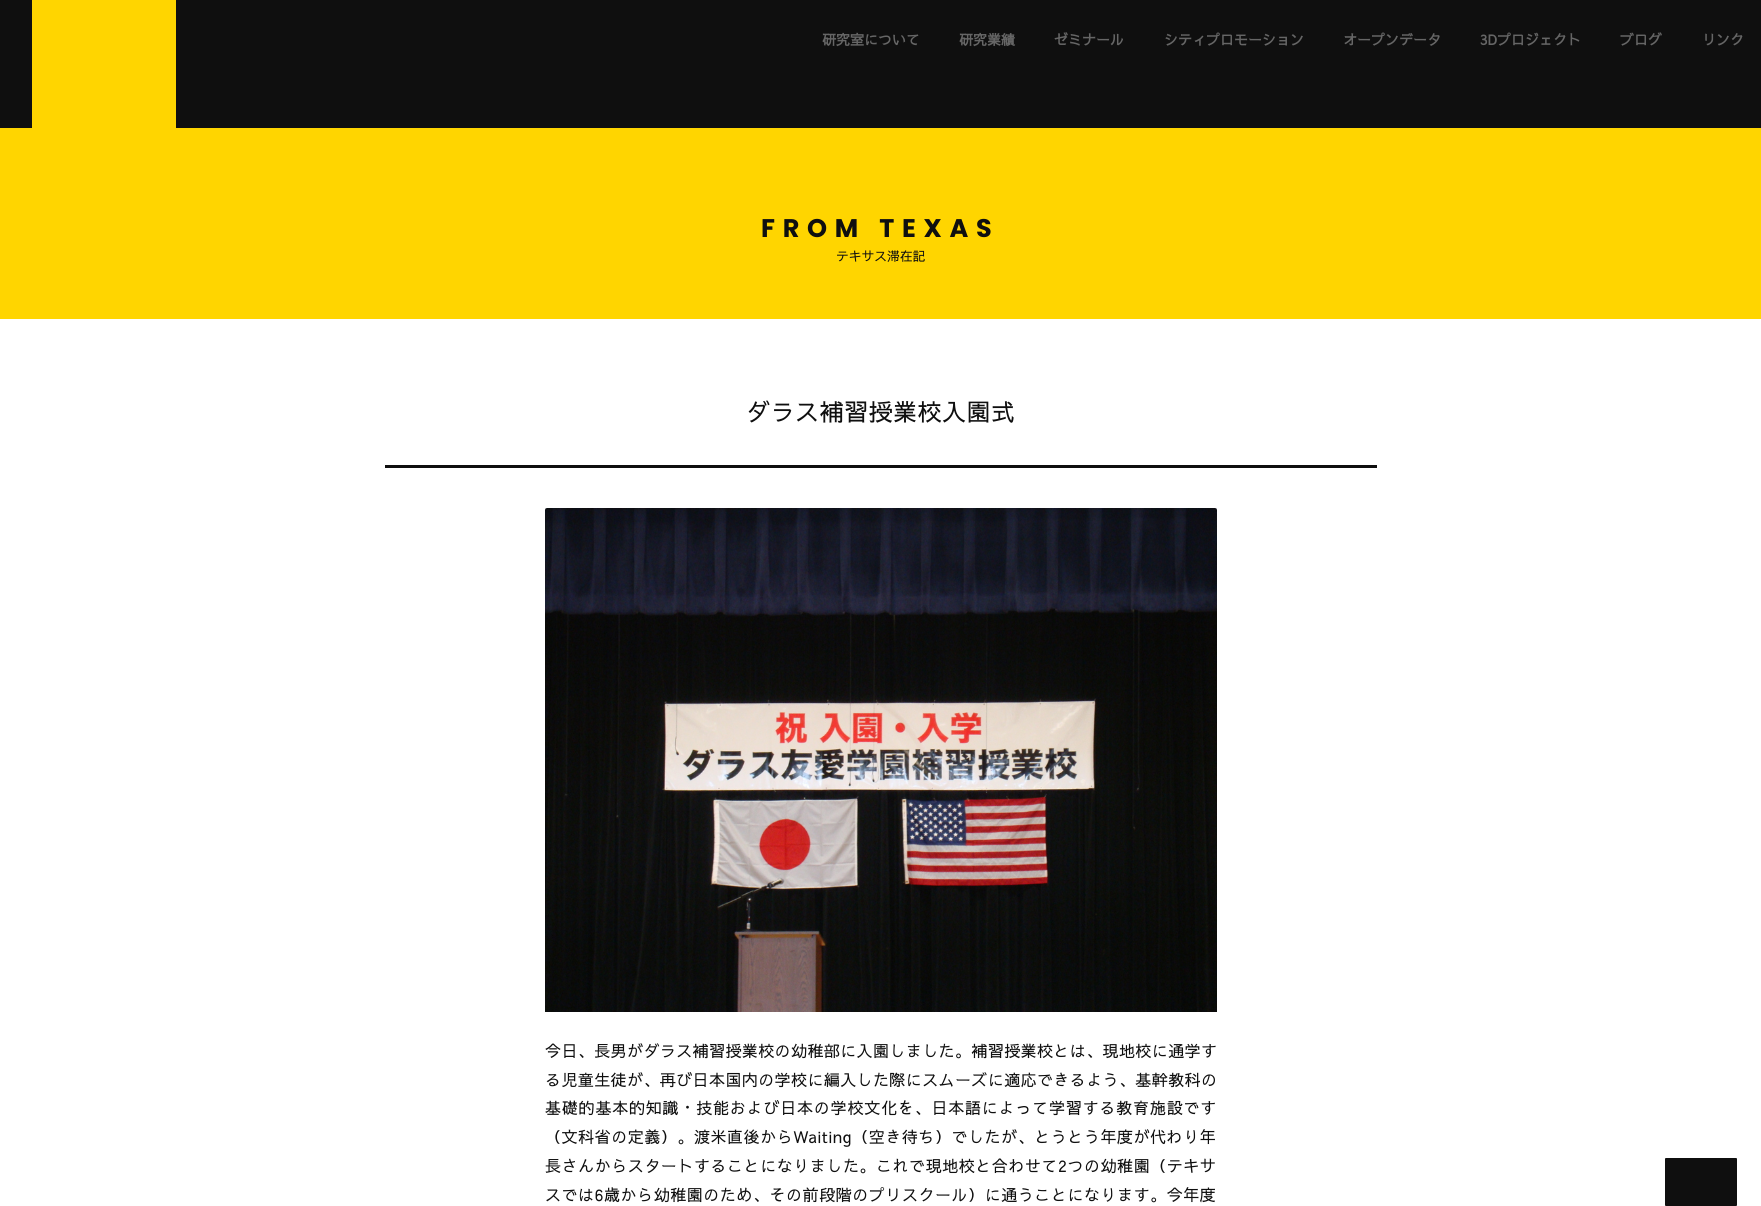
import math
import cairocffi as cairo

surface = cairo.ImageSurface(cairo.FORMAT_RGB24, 1761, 1206)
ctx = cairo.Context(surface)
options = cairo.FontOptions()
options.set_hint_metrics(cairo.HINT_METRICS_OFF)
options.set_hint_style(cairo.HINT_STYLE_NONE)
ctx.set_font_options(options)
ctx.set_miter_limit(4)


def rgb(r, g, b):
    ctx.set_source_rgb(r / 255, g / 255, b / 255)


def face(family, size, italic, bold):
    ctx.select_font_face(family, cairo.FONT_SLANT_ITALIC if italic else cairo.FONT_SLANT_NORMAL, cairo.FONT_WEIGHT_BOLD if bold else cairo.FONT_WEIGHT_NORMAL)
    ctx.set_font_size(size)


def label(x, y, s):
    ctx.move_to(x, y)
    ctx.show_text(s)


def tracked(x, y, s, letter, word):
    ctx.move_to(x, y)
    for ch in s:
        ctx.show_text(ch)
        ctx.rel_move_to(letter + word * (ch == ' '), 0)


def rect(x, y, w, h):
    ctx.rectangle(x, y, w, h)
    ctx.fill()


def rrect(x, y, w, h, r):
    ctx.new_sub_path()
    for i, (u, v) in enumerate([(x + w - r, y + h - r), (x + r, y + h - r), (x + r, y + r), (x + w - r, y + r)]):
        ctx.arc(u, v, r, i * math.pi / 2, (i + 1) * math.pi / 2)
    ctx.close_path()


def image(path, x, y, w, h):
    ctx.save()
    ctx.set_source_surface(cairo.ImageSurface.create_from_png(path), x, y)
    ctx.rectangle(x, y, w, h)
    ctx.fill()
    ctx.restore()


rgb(255, 255, 255)
ctx.paint()
rgb(15, 15, 15)
rect(0, 0, 1761, 128)
rgb(255, 213, 0)
rect(32, 0, 144, 128)
face('Sawarabi Gothic', 14, 0, 1)
rgb(102, 102, 102)
label(822, 45, '研究室について')
label(959, 45, '研究業績')
label(1054, 45, 'ゼミナール')
label(1164, 45, 'シティプロモーション')
label(1343, 45, 'オープンデータ')
label(1480, 45, '3Dプロジェクト')
label(1620, 45, 'ブログ')
label(1702, 45, 'リンク')
rgb(255, 213, 0)
rect(0, 128, 1761, 191)
face('Poppins', 25.5, 0, 1)
rgb(15, 15, 15)
tracked(761, 237, 'FROM TEXAS', 7.75, 0)
face('Sawarabi Gothic', 12.75, 0, 0)
label(836, 261, 'テキサス滞在記')
rect(385, 465, 992, 3)
face('Sawarabi Gothic', 24, 0, 0)
tracked(746, 421, 'ダラス補習授業校入園式', 0.5, 0)
image('image0.png', 545, 508, 672, 504)
face('Sawarabi Gothic', 16, 0, 0)
tracked(545, 1057, '今日、長男がダラス補習授業校の幼稚部に入園しました。補習授業校とは、現地校に通学す', 0.4, 0)
tracked(545, 1086, 'る児童生徒が、再び日本国内の学校に編入した際にスムーズに適応できるよう、基幹教科の', 0.4, 0)
tracked(545, 1114, '基礎的基本的知識・技能および日本の学校文化を、日本語によって学習する教育施設です', 0.8, 0)
tracked(545, 1143, '（文科省の定義）。渡米直後からWaiting（空き待ち）でしたが、とうとう年度が代わり年', 0.55, 0)
tracked(545, 1172, '長さんからスタートすることになりました。これで現地校と合わせて2つの幼稚園（テキサ', 0.55, 0)
tracked(545, 1201, 'スでは6歳から幼稚園のため、その前段階のプリスクール）に通うことになります。今年度', 0.55, 0)
rrect(1665, 1158, 72, 48, 1)
ctx.fill()
surface.write_to_png('render.png')
